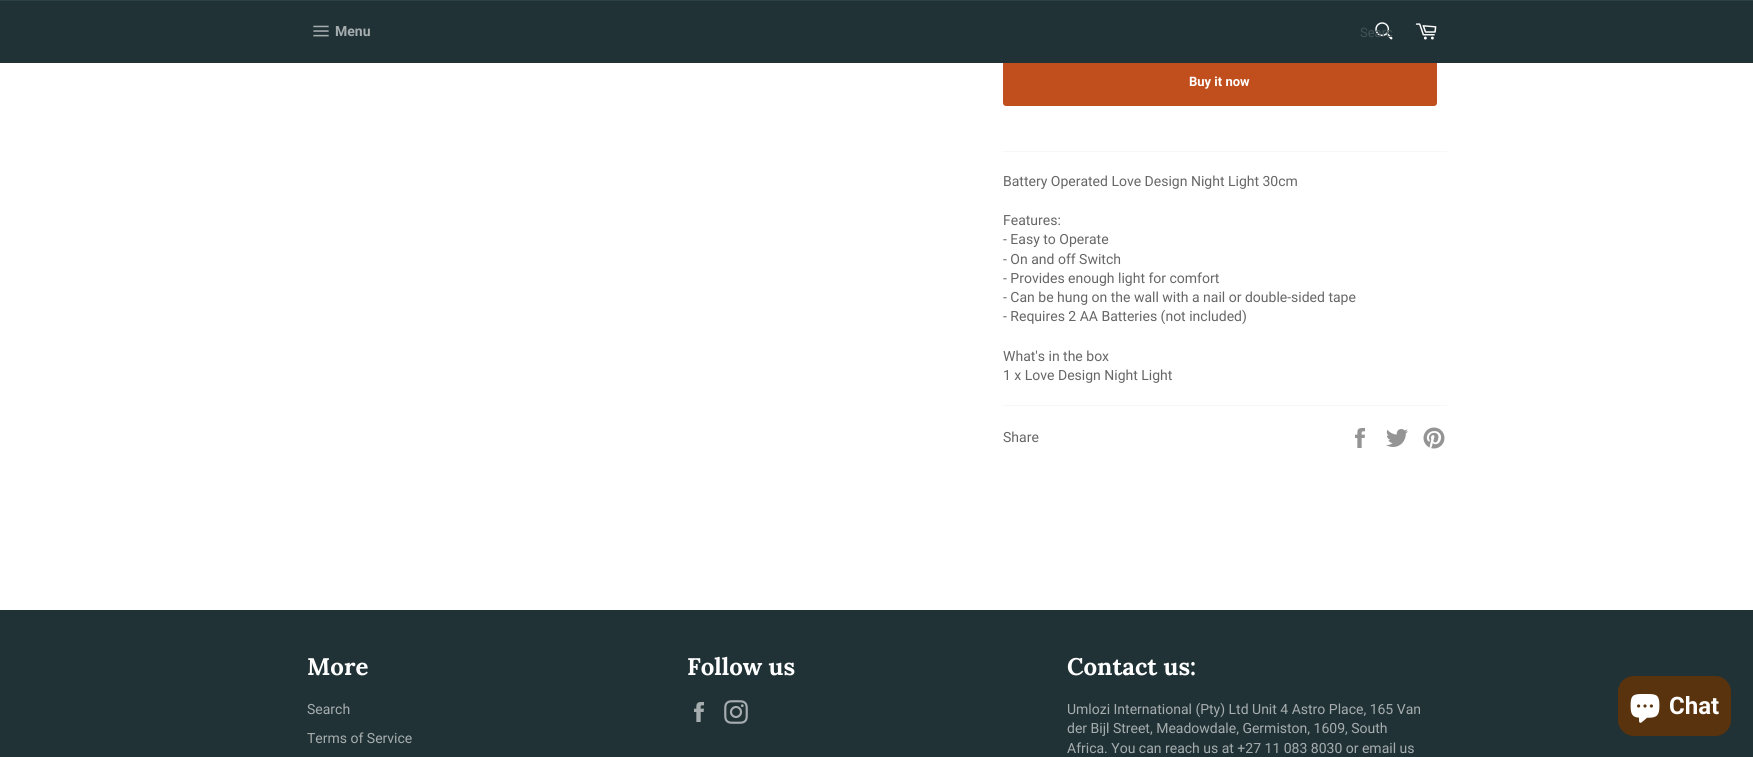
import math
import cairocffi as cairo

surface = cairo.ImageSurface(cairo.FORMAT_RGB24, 1753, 757)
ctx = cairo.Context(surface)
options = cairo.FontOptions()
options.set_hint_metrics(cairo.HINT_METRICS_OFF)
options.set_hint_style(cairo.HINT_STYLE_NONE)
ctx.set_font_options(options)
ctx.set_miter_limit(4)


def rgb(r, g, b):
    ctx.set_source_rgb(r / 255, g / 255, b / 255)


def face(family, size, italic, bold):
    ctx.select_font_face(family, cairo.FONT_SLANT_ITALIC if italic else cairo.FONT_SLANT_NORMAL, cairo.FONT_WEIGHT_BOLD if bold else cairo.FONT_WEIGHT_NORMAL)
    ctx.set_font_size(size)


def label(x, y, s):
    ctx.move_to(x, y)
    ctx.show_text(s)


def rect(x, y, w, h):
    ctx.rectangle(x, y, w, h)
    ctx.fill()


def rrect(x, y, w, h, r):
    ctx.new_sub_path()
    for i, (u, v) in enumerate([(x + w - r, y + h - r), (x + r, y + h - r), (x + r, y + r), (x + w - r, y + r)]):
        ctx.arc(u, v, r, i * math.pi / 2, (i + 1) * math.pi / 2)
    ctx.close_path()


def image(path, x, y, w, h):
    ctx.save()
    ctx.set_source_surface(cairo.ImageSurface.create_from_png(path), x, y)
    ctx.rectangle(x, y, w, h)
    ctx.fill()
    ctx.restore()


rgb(255, 255, 255)
ctx.paint()
rgb(192, 79, 29)
rrect(1003, 58, 434, 48, 3)
ctx.fill()
rgb(33, 50, 54)
rect(0, 1, 1753, 62)
rgb(43, 65, 70)
rect(0, 0, 1753, 1)
image('image0.png', 313, 25, 16, 12)
face('Roboto', 14, 0, 1)
rgb(166, 173, 175)
label(335, 36, 'Menu')
image('image1.png', 1375, 22, 18, 18)
face('Roboto', 13, 0, 0)
rgb(66, 81, 84)
label(1360, 37, 'Searc')
image('image2.png', 1415, 23, 22, 17)
face('Roboto', 13, 0, 1)
rgb(255, 255, 255)
label(1189, 86, 'Buy it now')
rgb(247, 247, 247)
rect(1003, 151, 444, 1)
face('Roboto', 14, 0, 0)
rgb(102, 102, 102)
label(1003, 186, 'Battery Operated Love Design Night Light 30cm')
label(1003, 225, 'Features:')
label(1003, 244, '- Easy to Operate')
label(1003, 264, '- On and off Switch')
label(1003, 283, '- Provides enough light for comfort')
label(1003, 302, '- Can be hung on the wall with a nail or double-sided tape')
label(1003, 321, '- Requires 2 AA Batteries (not included)')
label(1003, 361, 'What\'s in the box')
label(1003, 380, '1 x Love Design Night Light')
rgb(247, 247, 247)
rect(1003, 405, 444, 1)
rgb(102, 102, 102)
label(1003, 442, 'Share')
image('image3.png', 1355, 428, 10, 20)
image('image4.png', 1386, 429, 22, 18)
image('image5.png', 1423, 427, 22, 22)
rgb(33, 50, 54)
rect(0, 610, 1753, 147)
face('Lora', 24, 0, 1)
rgb(255, 255, 255)
label(307, 675, 'More')
face('Roboto', 14, 0, 0)
rgb(166, 173, 175)
label(307, 714, 'Search')
label(307, 743, 'Terms of Service')
face('Lora', 24, 0, 1)
rgb(255, 255, 255)
label(687, 675, 'Follow us')
image('image6.png', 694, 702, 10, 20)
image('image7.png', 724, 700, 24, 24)
label(1067, 675, 'Contact us:')
face('Roboto', 14, 0, 0)
rgb(166, 173, 175)
label(1067, 714, 'Umlozi International (Pty) Ltd Unit 4 Astro Place, 165 Van')
label(1067, 733, 'der Bijl Street, Meadowdale, Germiston, 1609, South')
label(1067, 753, 'Africa. You can reach us at +27 11 083 8030 or email us')
rgb(89, 51, 13)
rrect(1618, 676, 113, 60, 16)
ctx.fill()
image('image8.png', 1630, 694, 30, 29)
face('Roboto', 24, 0, 1)
rgb(255, 255, 255)
label(1669, 714, 'Chat')
surface.write_to_png('render.png')
